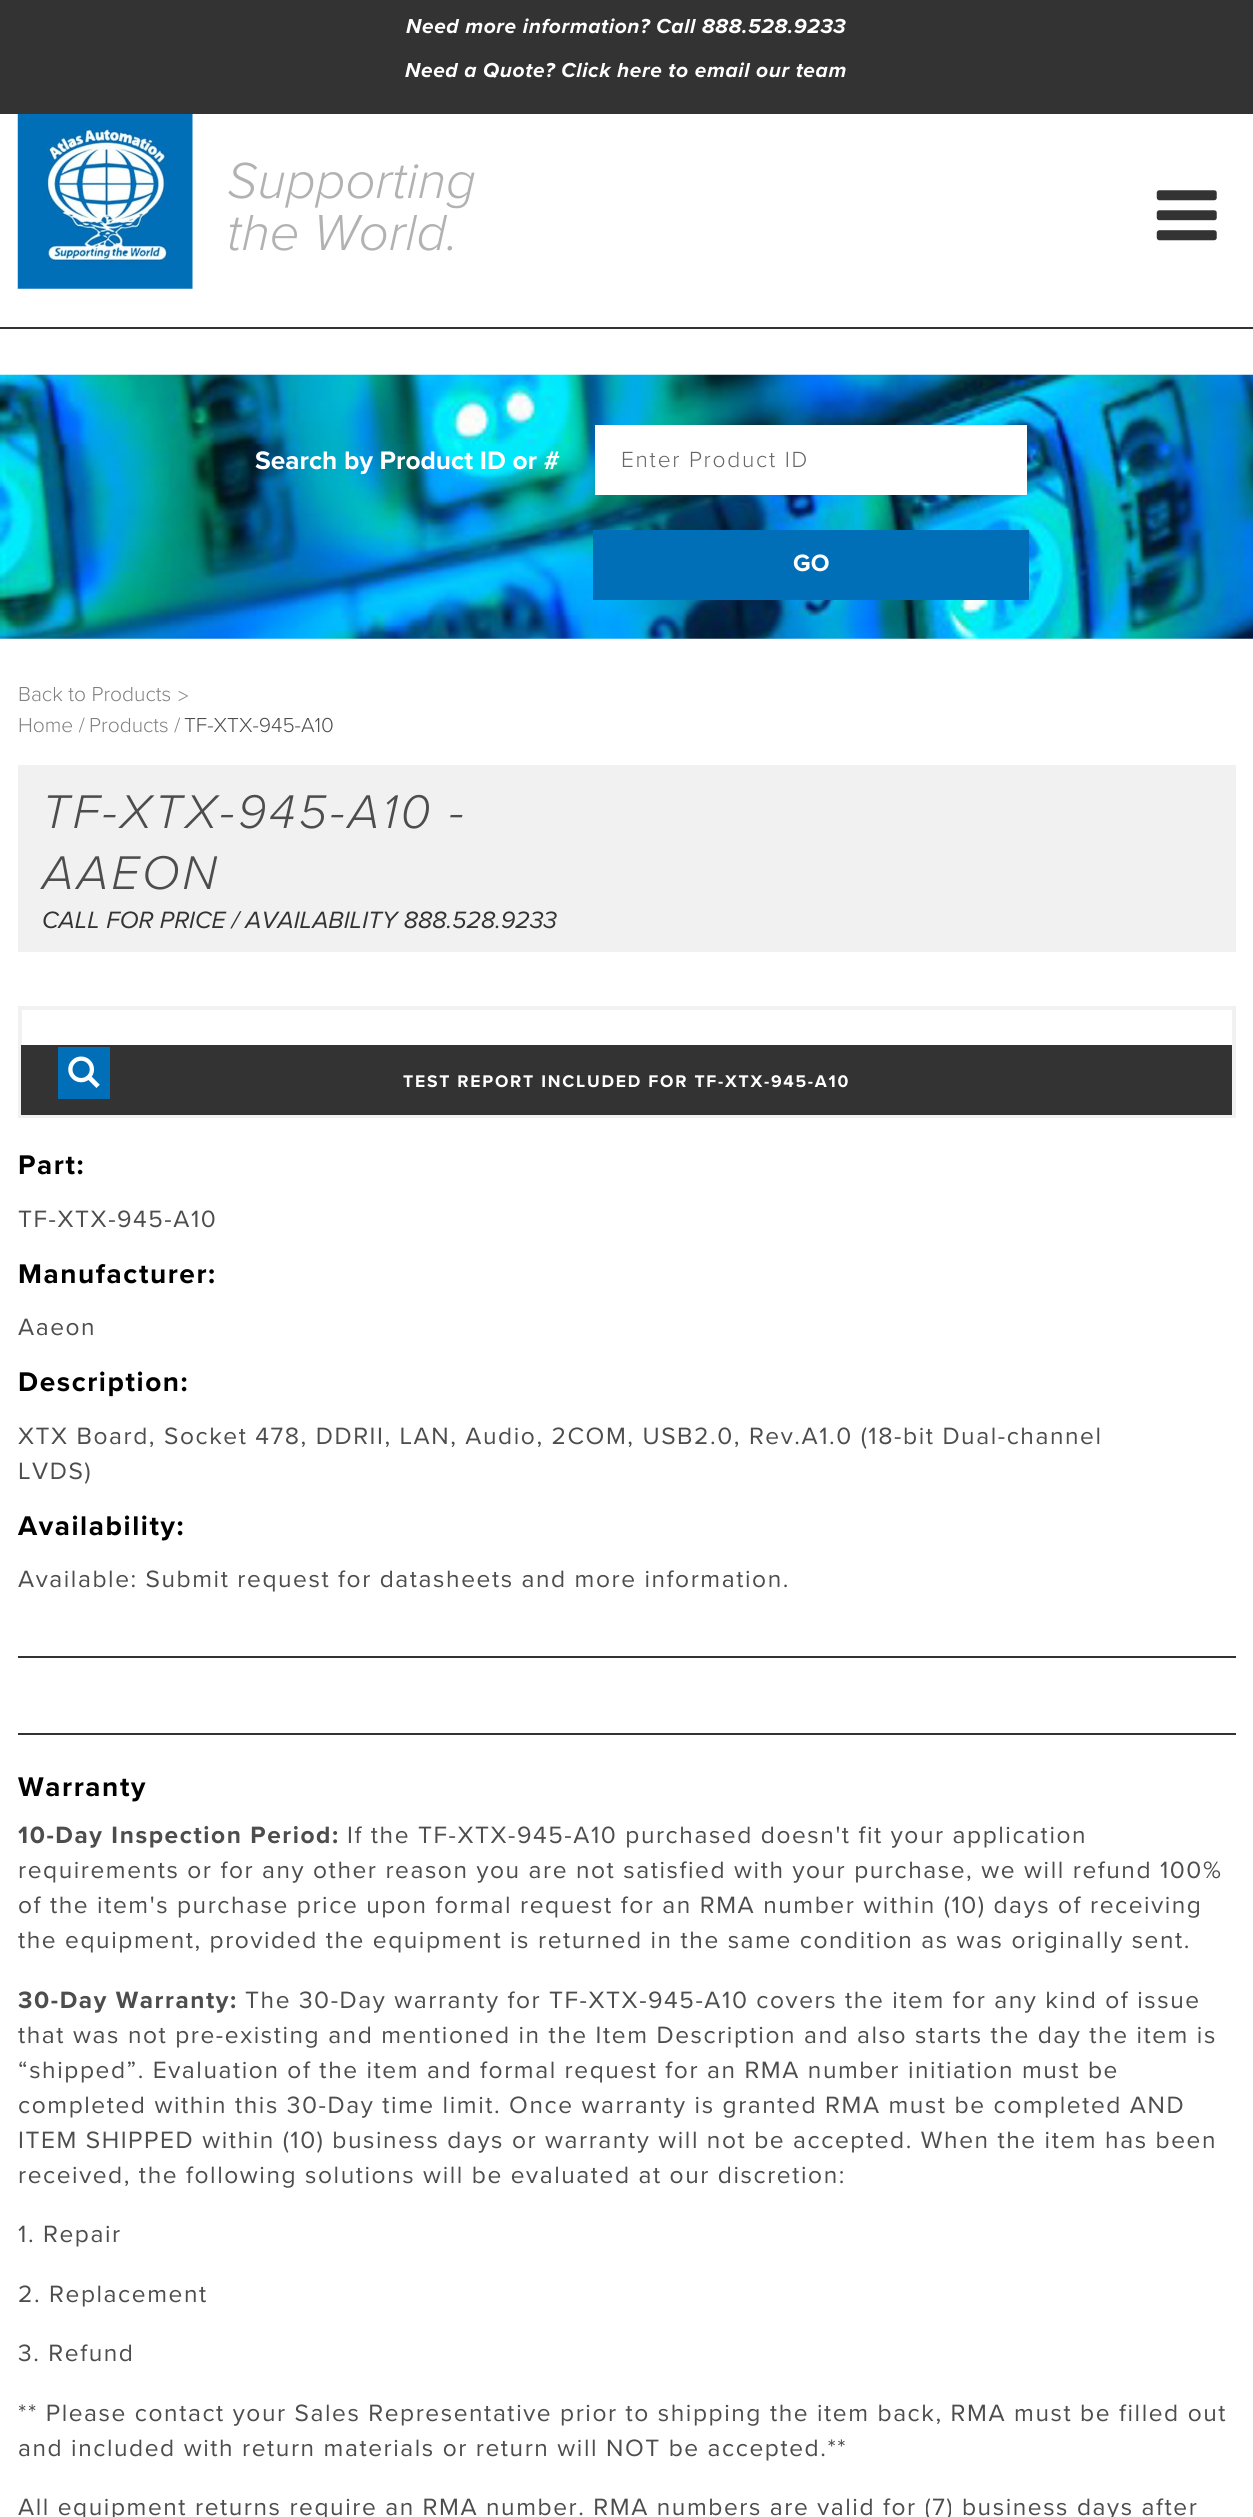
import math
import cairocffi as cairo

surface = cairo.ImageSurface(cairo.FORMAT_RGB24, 1253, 2517)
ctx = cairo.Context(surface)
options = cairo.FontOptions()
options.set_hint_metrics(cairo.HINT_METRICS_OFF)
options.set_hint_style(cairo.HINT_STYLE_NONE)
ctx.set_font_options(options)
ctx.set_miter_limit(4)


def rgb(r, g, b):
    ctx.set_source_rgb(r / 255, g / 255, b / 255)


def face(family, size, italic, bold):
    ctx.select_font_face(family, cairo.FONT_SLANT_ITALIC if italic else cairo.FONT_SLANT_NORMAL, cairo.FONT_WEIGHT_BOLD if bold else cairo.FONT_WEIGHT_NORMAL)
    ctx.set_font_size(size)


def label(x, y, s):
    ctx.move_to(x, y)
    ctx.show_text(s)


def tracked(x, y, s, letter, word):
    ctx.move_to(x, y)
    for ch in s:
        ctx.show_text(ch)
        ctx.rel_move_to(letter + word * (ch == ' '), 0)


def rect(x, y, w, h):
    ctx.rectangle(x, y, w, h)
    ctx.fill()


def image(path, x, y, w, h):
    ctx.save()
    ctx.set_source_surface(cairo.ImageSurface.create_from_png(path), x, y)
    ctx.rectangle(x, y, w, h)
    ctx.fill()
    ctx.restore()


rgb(255, 255, 255)
ctx.paint()
rgb(51, 51, 51)
rect(0, 327, 1253, 2)
rect(0, 0, 1253, 114)
face('Proxima Nova', 21, 1, 1)
rgb(255, 255, 255)
tracked(406, 33, 'Need more information? Call 888.528.9233', 0.6, 0)
tracked(405, 77, 'Need a Quote? Click here to email our team', 0.6, 0)
image('image0.png', 17, 114, 176, 175)
face('Proxima Nova Light', 52.5, 1, 0)
rgb(178, 178, 178)
label(227, 198, 'Supporting')
label(227, 250, 'the World.')
image('image1.png', 1156, 190, 61, 51)
image('image2.png', 0, 374, 1253, 265)
face('Proxima Nova', 26.25, 0, 1)
rgb(255, 255, 255)
label(255, 469, 'Search by Product ID or #')
rect(595, 425, 432, 70)
face('Proxima Nova Light', 22.75, 0, 0)
rgb(102, 102, 102)
tracked(621, 467, 'Enter Product ID', 1.75, 0)
rgb(0, 111, 184)
rect(593, 530, 436, 70)
face('Proxima Nova', 24.5, 0, 1)
rgb(255, 255, 255)
label(793, 571, 'GO')
face('Proxima Nova Light', 21, 0, 0)
rgb(128, 128, 128)
label(18, 701, 'Back to Products')
label(178, 703, '>')
label(18, 732, 'Home /')
label(89, 732, 'Products /')
rgb(77, 77, 77)
label(184, 732, 'TF-XTX-945-A10')
rgb(241, 241, 241)
rect(18, 765, 1218, 187)
face('Proxima Nova Light', 49, 1, 0)
rgb(77, 77, 77)
tracked(42, 828, 'TF-XTX-945-A10 -', 3, 0)
tracked(42, 889, 'AAEON', 3, 0)
face('Proxima Nova', 24.5, 1, 0)
rgb(51, 51, 51)
label(42, 928, 'CALL FOR PRICE / AVAILABILITY 888.528.9233')
ctx.rectangle(20, 1008, 1214, 108)
rgb(241, 241, 241)
ctx.set_line_width(4)
ctx.stroke()
rgb(51, 51, 51)
rect(21, 1045, 1211, 70)
rgb(0, 111, 184)
rect(58, 1047, 52, 52)
image('image3.png', 68, 1056, 32, 32)
face('Proxima Nova', 17.5, 0, 1)
rgb(255, 255, 255)
tracked(403, 1087, 'TEST REPORT INCLUDED FOR TF-XTX-945-A10', 1.75, 0)
rgb(51, 51, 51)
rect(18, 1656, 1218, 2)
face('Proxima Nova', 28, 0, 1)
rgb(0, 0, 0)
tracked(18, 1174, 'Part:', 1.57, 0)
face('Proxima Nova', 24.5, 0, 0)
rgb(77, 77, 77)
tracked(18, 1227, 'TF-XTX-945-A10', 1.57, 0)
face('Proxima Nova', 28, 0, 1)
rgb(0, 0, 0)
tracked(18, 1283, 'Manufacturer:', 1.57, 0)
face('Proxima Nova', 24.5, 0, 0)
rgb(77, 77, 77)
tracked(18, 1335, 'Aaeon', 1.57, 0)
face('Proxima Nova', 28, 0, 1)
rgb(0, 0, 0)
tracked(18, 1391, 'Description:', 1.57, 0)
face('Proxima Nova', 24.5, 0, 0)
rgb(77, 77, 77)
tracked(18, 1444, 'XTX Board, Socket 478, DDRII, LAN, Audio, 2COM, USB2.0, Rev.A1.0 (18-bit Dual-channel', 1.57, 0)
tracked(18, 1479, 'LVDS)', 1.57, 0)
face('Proxima Nova', 28, 0, 1)
rgb(0, 0, 0)
tracked(18, 1535, 'Availability:', 1.57, 0)
face('Proxima Nova', 24.5, 0, 0)
rgb(77, 77, 77)
tracked(18, 1587, 'Available: Submit request for datasheets and more information.', 1.57, 0)
rgb(51, 51, 51)
rect(18, 1733, 1218, 2)
face('Proxima Nova', 28, 0, 1)
rgb(0, 0, 0)
tracked(18, 1796, 'Warranty', 1.57, 0)
face('Proxima Nova', 24.5, 0, 1)
rgb(77, 77, 77)
tracked(18, 1843, '10-Day Inspection Period:', 1.57, 0)
face('Proxima Nova', 24.5, 0, 0)
tracked(347, 1843, 'If the TF-XTX-945-A10 purchased doesn\'t fit your application', 1.57, 0)
tracked(18, 1878, 'requirements or for any other reason you are not satisfied with your purchase, we will refund 100%', 1.57, 0)
tracked(18, 1913, 'of the item\'s purchase price upon formal request for an RMA number within (10) days of receiving', 1.57, 0)
tracked(18, 1948, 'the equipment, provided the equipment is returned in the same condition as was originally sent.', 1.57, 0)
face('Proxima Nova', 24.5, 0, 1)
tracked(18, 2008, '30-Day Warranty:', 1.57, 0)
face('Proxima Nova', 24.5, 0, 0)
tracked(245, 2008, 'The 30-Day warranty for TF-XTX-945-A10 covers the item for any kind of issue', 1.57, 0)
tracked(18, 2043, 'that was not pre-existing and mentioned in the Item Description and also starts the day the item is', 1.57, 0)
tracked(18, 2078, '“shipped”. Evaluation of the item and formal request for an RMA number initiation must be', 1.57, 0)
tracked(18, 2113, 'completed within this 30-Day time limit. Once warranty is granted RMA must be completed AND', 1.57, 0)
tracked(18, 2148, 'ITEM SHIPPED within (10) business days or warranty will not be accepted. When the item has been', 1.57, 0)
tracked(18, 2183, 'received, the following solutions will be evaluated at our discretion:', 1.57, 0)
tracked(18, 2242, '1. Repair', 1.57, 0)
tracked(18, 2302, '2. Replacement', 1.57, 0)
tracked(18, 2361, '3. Refund', 1.57, 0)
tracked(18, 2421, '** Please contact your Sales Representative prior to shipping the item back, RMA must be filled out', 1.57, 0)
tracked(18, 2456, 'and included with return materials or return will NOT be accepted.**', 1.57, 0)
tracked(18, 2515, 'All equipment returns require an RMA number. RMA numbers are valid for (7) business days after', 1.57, 0)
surface.write_to_png('render.png')
